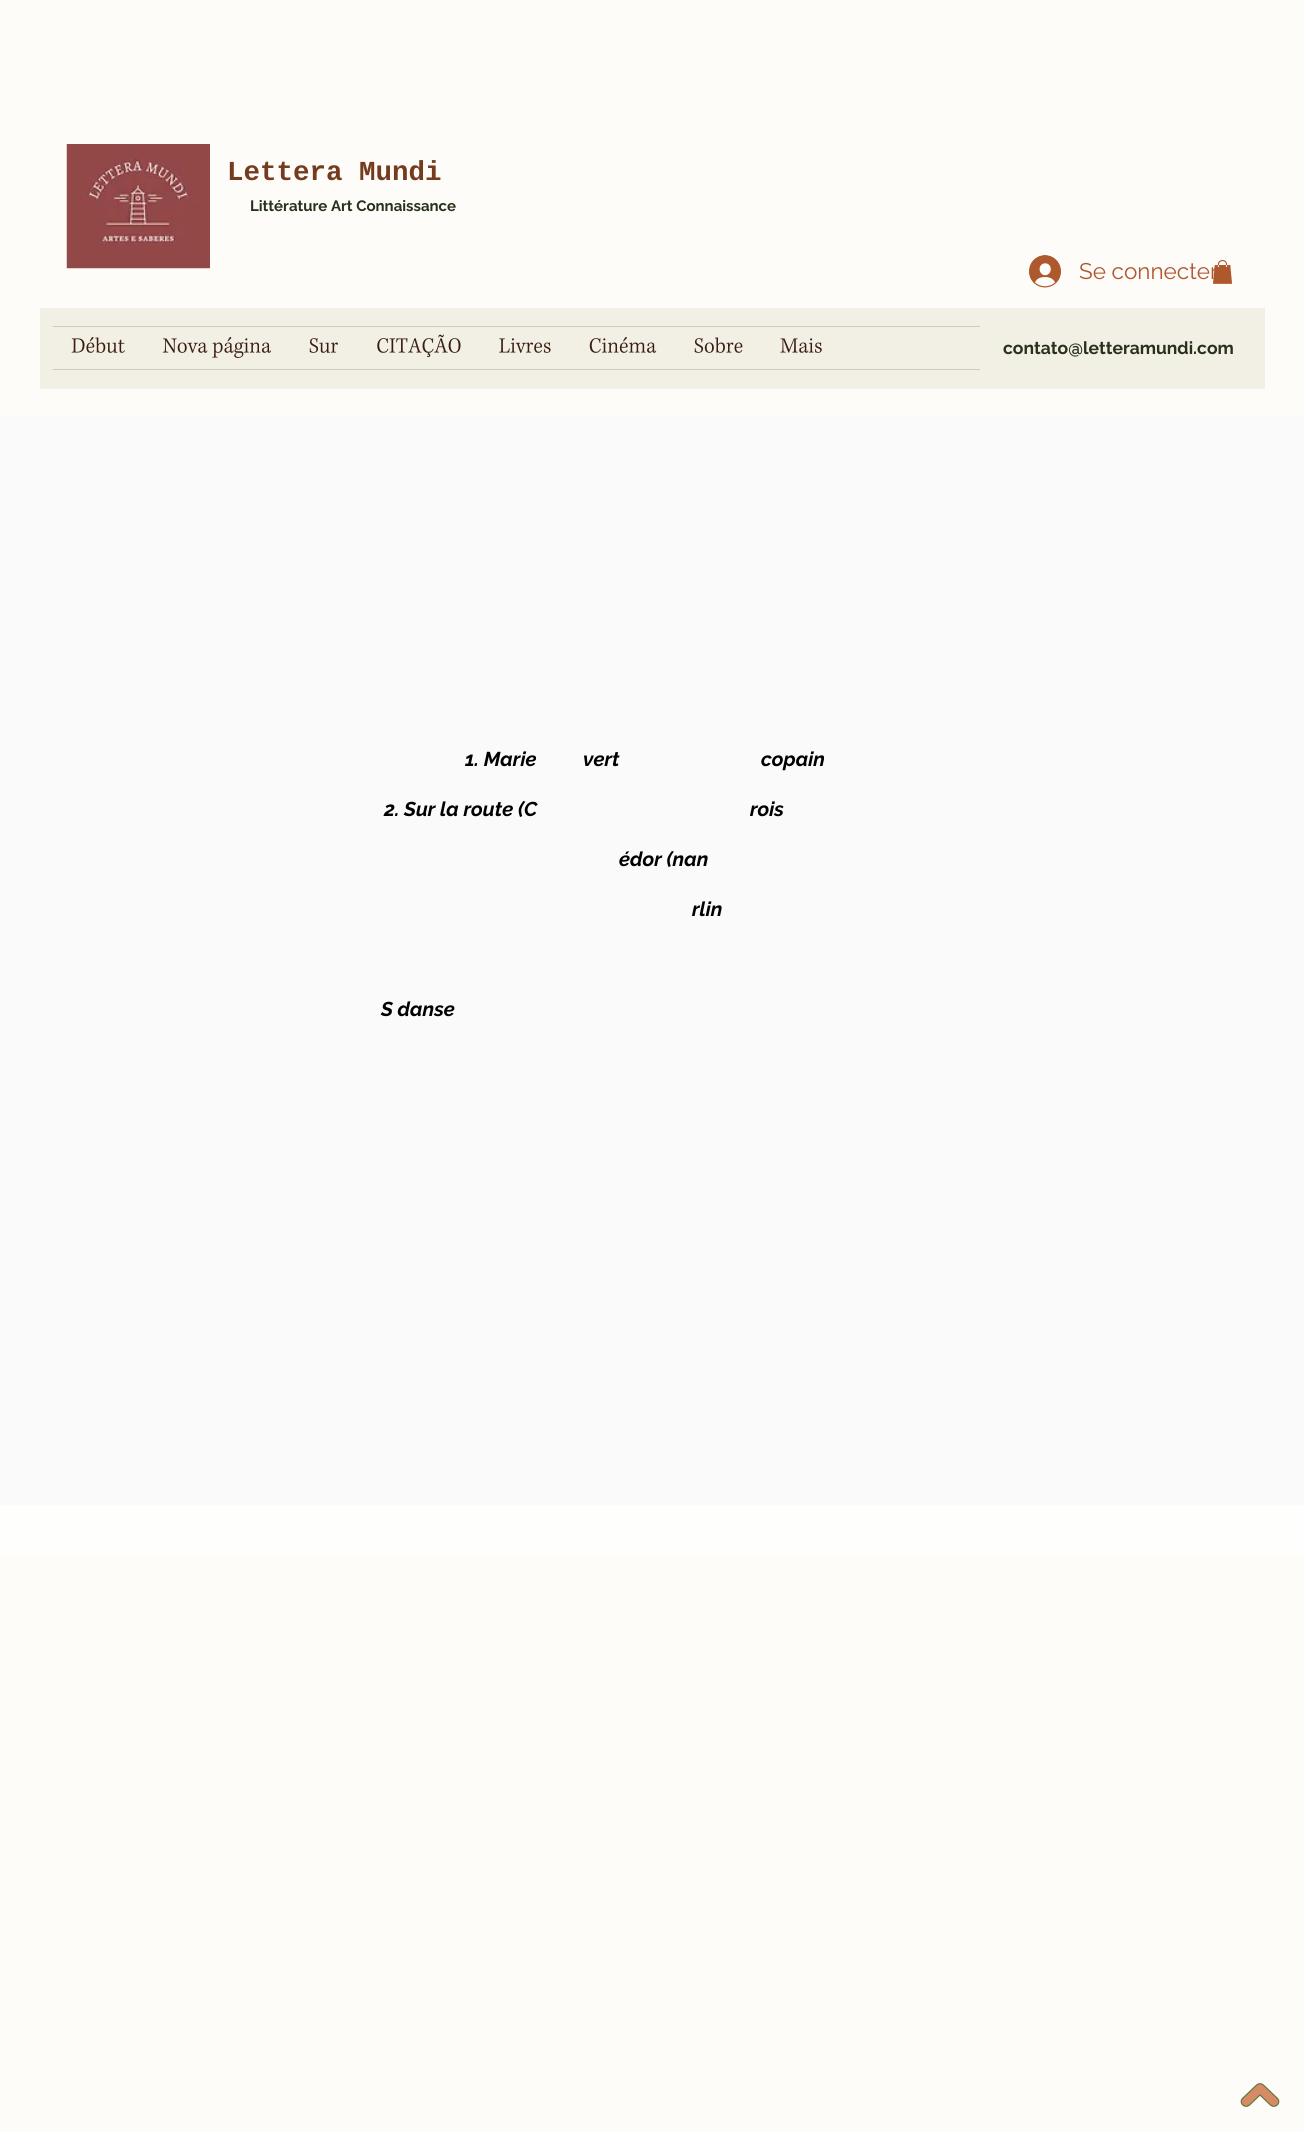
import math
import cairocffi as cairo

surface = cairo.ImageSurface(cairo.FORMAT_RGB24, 1304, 2132)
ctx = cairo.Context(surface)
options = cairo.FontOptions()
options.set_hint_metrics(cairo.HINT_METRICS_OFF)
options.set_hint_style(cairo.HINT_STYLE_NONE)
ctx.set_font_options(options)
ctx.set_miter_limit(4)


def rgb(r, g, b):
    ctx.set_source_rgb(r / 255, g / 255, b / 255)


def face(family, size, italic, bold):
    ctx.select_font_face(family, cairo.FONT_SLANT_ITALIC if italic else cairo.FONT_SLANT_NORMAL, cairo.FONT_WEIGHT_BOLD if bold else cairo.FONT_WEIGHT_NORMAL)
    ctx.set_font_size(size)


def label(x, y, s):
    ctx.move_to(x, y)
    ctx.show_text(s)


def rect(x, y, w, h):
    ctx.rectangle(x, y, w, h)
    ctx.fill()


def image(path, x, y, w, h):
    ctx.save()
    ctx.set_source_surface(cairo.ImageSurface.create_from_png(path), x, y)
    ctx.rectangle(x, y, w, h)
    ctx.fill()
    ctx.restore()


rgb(253, 252, 249)
ctx.paint()
image('image0.png', 66, 144, 144, 125)
face('Liberation Mono', 27.5, 0, 1)
rgb(116, 59, 30)
label(227, 180, 'Lettera Mundi')
face('Raleway', 15, 0, 1)
rgb(40, 49, 27)
label(250, 211, 'Littérature Art Connaissance')
image('image1.png', 1029, 255, 32, 33)
face('Raleway', 22.5, 0, 0)
rgb(174, 88, 45)
label(1079, 279, 'Se connecter')
image('image2.png', 1213, 260, 19, 24)
rgb(242, 239, 229)
rect(40, 308, 1225, 81)
rgb(202, 202, 202)
rect(53, 326, 927, 1)
rect(53, 369, 927, 1)
image('image3.png', 71, 337, 54, 16)
image('image4.png', 162, 337, 109, 21)
image('image5.png', 309, 338, 29, 15)
image('image6.png', 377, 334, 84, 24)
image('image7.png', 499, 338, 52, 15)
image('image8.png', 589, 337, 68, 16)
image('image9.png', 694, 337, 49, 16)
image('image10.png', 780, 338, 42, 15)
face('Raleway', 17.5, 0, 1)
rgb(40, 49, 27)
label(1003, 354, 'contato@letteramundi.com')
rgb(250, 250, 250)
rect(0, 416, 1304, 1089)
face('Raleway', 20, 1, 1)
rgb(0, 0, 0)
label(465, 766, '1. Marie')
label(583, 766, 'vert')
label(761, 766, 'copain')
label(384, 816, '2. Sur la route (C')
label(750, 816, 'rois')
label(619, 866, 'édor (nan')
label(692, 916, 'rlin')
label(381, 1016, 'S danse')
rgb(254, 254, 253)
rect(0, 1505, 1304, 50)
image('image11.png', 1240, 2083, 40, 24)
surface.write_to_png('render.png')
